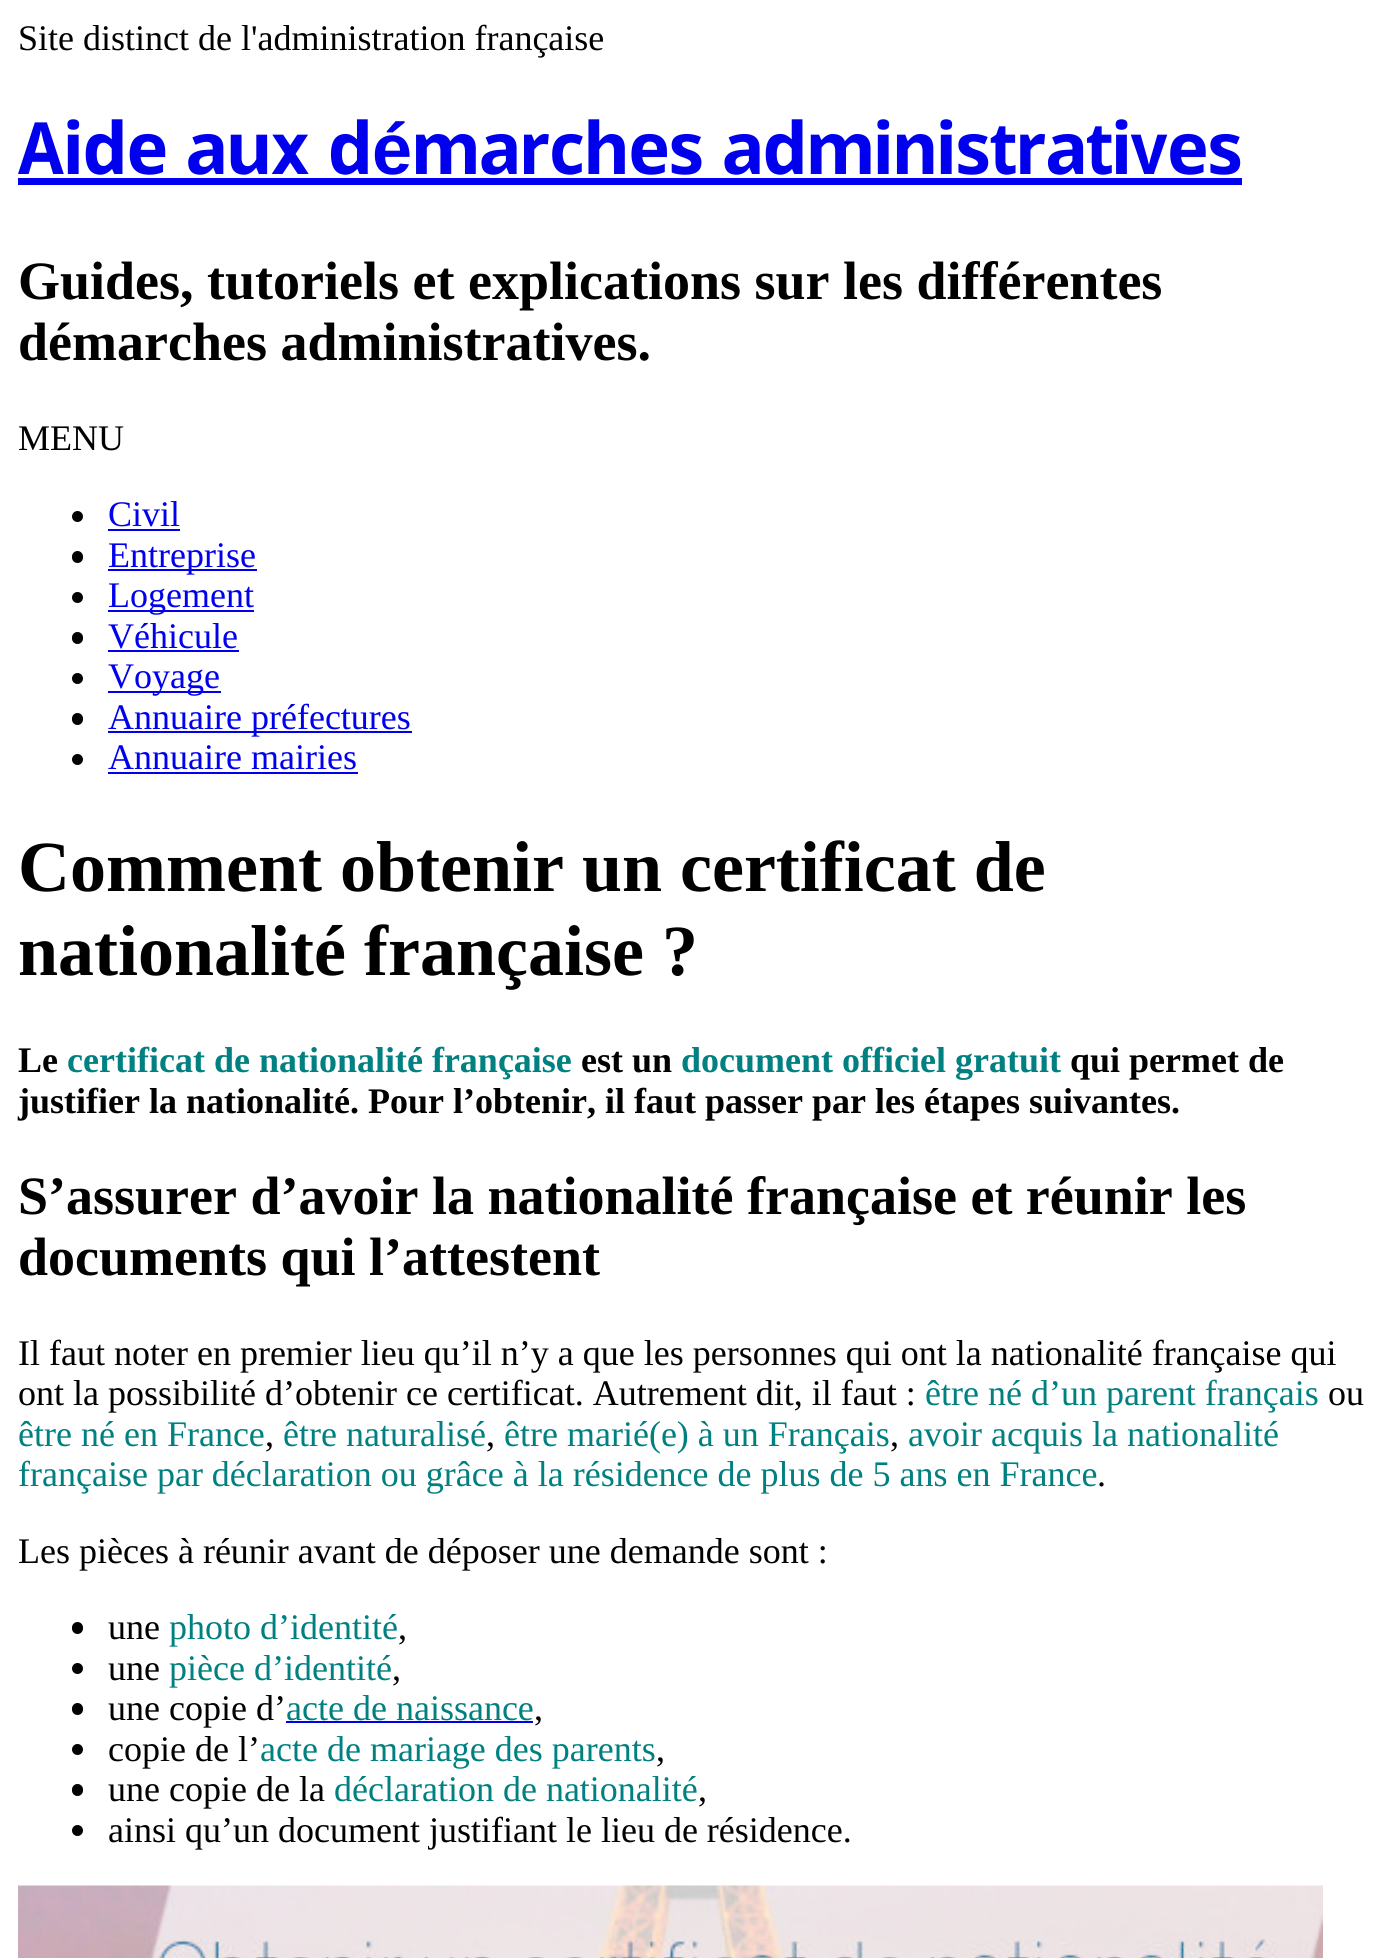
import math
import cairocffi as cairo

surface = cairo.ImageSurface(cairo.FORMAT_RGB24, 1392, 1958)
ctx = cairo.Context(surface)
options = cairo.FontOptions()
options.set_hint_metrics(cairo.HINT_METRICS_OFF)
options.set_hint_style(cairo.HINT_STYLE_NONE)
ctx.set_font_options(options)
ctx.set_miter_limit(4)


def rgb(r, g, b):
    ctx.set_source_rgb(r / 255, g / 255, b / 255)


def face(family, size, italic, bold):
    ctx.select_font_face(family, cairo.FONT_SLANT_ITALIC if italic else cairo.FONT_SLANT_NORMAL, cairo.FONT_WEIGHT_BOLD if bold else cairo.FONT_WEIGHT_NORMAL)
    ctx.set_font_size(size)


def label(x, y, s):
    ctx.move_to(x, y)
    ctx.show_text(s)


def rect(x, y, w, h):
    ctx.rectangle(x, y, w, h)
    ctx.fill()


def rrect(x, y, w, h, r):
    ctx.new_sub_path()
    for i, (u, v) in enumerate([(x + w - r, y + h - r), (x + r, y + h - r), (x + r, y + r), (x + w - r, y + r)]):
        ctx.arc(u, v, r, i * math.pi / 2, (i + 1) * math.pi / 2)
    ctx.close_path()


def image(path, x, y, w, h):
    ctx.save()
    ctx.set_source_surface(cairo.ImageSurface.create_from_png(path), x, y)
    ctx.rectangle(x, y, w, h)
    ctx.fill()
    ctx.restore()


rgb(255, 255, 255)
ctx.paint()
face('Liberation Serif', 36, 0, 0)
rgb(0, 0, 0)
label(18, 50, 'Site distinct de l\'administration française')
face('Nokora', 72, 0, 1)
rgb(0, 0, 238)
label(18, 174, 'Aide aux d')
face('Liberation Sans', 72, 0, 1)
label(372, 174, 'é')
rect(18, 178, 1224, 7)
face('Nokora', 72, 0, 1)
label(412, 174, 'marches administratives')
face('Liberation Serif', 54, 0, 1)
rgb(0, 0, 0)
label(18, 299, 'Guides, tutoriels et explications sur les différentes')
label(18, 360, 'démarches administratives.')
face('Liberation Serif', 36, 0, 0)
label(18, 450, 'MENU')
ctx.new_path()
ctx.arc(77.5, 516.5, 5.5, 0, 2 * math.pi)
ctx.fill()
rgb(0, 0, 238)
label(108, 526, 'Civil')
rect(108, 529, 72, 2)
rgb(0, 0, 0)
rrect(72, 551, 11, 12, 5.5)
ctx.fill()
rgb(0, 0, 238)
rect(108, 569, 149, 2)
label(108, 567, 'Entreprise')
rgb(0, 0, 0)
ctx.new_path()
ctx.arc(77.5, 597.5, 5.5, 0, 2 * math.pi)
ctx.fill()
rgb(0, 0, 238)
rect(108, 610, 146, 2)
label(108, 607, 'Logement')
rgb(0, 0, 0)
rrect(72, 632, 11, 12, 5.5)
ctx.fill()
rgb(0, 0, 238)
label(108, 648, 'Véhicule')
rect(108, 650, 131, 2)
rgb(0, 0, 0)
ctx.new_path()
ctx.arc(77.5, 678.5, 5.5, 0, 2 * math.pi)
ctx.fill()
rgb(0, 0, 238)
rect(108, 691, 113, 2)
label(108, 688, 'Voyage')
rgb(0, 0, 0)
rrect(72, 713, 11, 12, 5.5)
ctx.fill()
rgb(0, 0, 238)
rect(108, 731, 304, 2)
label(108, 729, 'Annuaire préfectures')
rgb(0, 0, 0)
ctx.new_path()
ctx.arc(77.5, 759.5, 5.5, 0, 2 * math.pi)
ctx.fill()
rgb(0, 0, 238)
label(108, 769, 'Annuaire mairies')
rect(108, 772, 250, 2)
face('Liberation Serif', 72, 0, 1)
rgb(0, 0, 0)
label(18, 891, 'Comment obtenir un certificat de')
label(18, 975, 'nationalité française ?')
face('Liberation Serif', 36, 0, 1)
label(18, 1072, 'Le')
rgb(0, 128, 128)
label(67, 1072, 'certificat de nationalité française')
rgb(0, 0, 0)
label(581, 1072, 'est un')
rgb(0, 128, 128)
label(681, 1072, 'document officiel gratuit')
rgb(0, 0, 0)
label(1070, 1072, 'qui permet de')
label(18, 1113, 'justifier la nationalité. Pour l’obtenir, il faut passer par les étapes suivantes.')
face('Liberation Serif', 54, 0, 1)
label(18, 1214, 'S’assurer d’avoir la nationalité française et réunir les')
label(18, 1275, 'documents qui l’attestent')
face('Liberation Serif', 36, 0, 0)
label(18, 1365, 'Il faut noter en premier lieu qu’il n’y a que les personnes qui ont la nationalité française qui')
label(18, 1405, 'ont la possibilité d’obtenir ce certificat. Autrement dit, il faut :')
rgb(0, 128, 128)
label(925, 1405, 'être né d’un parent français')
rgb(0, 0, 0)
label(1328, 1405, 'ou')
rgb(0, 128, 128)
label(18, 1446, 'être né en France')
rgb(0, 0, 0)
label(265, 1446, ',')
rgb(0, 128, 128)
label(283, 1446, 'être naturalisé')
rgb(0, 0, 0)
label(486, 1446, ',')
rgb(0, 128, 128)
label(504, 1446, 'être marié(e) à un Français')
rgb(0, 0, 0)
label(890, 1446, ',')
rgb(0, 128, 128)
label(908, 1446, 'avoir acquis la nationalité')
label(18, 1486, 'française par déclaration ou grâce à la résidence de plus de 5 ans en France')
rgb(0, 0, 0)
label(1097, 1486, '.')
label(18, 1563, 'Les pièces à réunir avant de déposer une demande sont :')
rrect(72, 1622, 11, 12, 5.5)
ctx.fill()
label(108, 1639, 'une')
rgb(0, 128, 128)
label(169, 1639, 'photo d’identité')
rgb(0, 0, 0)
label(398, 1639, ',')
ctx.new_path()
ctx.arc(77.5, 1668.5, 5.5, 0, 2 * math.pi)
ctx.fill()
label(108, 1680, 'une')
rgb(0, 128, 128)
label(169, 1680, 'pièce d’identité')
rgb(0, 0, 0)
label(392, 1680, ',')
rrect(72, 1703, 11, 12, 5.5)
ctx.fill()
label(108, 1720, 'une copie d’')
rgb(0, 128, 128)
label(286, 1720, 'acte de naissance')
rgb(0, 0, 238)
rect(286, 1721, 247, 2)
rgb(0, 0, 0)
label(534, 1720, ',')
ctx.new_path()
ctx.arc(77.5, 1749.5, 5.5, 0, 2 * math.pi)
ctx.fill()
label(108, 1761, 'copie de l’')
rgb(0, 128, 128)
label(260, 1761, 'acte de mariage des parents')
rgb(0, 0, 0)
label(656, 1761, ',')
rrect(72, 1784, 11, 12, 5.5)
ctx.fill()
label(108, 1801, 'une copie de la')
rgb(0, 128, 128)
label(334, 1801, 'déclaration de nationalité')
rgb(0, 0, 0)
label(698, 1801, ',')
ctx.new_path()
ctx.arc(77.5, 1830.5, 5.5, 0, 2 * math.pi)
ctx.fill()
label(108, 1842, 'ainsi qu’un document justifiant le lieu de résidence.')
image('image0.png', 18, 1885, 1305, 73)
surface.write_to_png('render.png')
